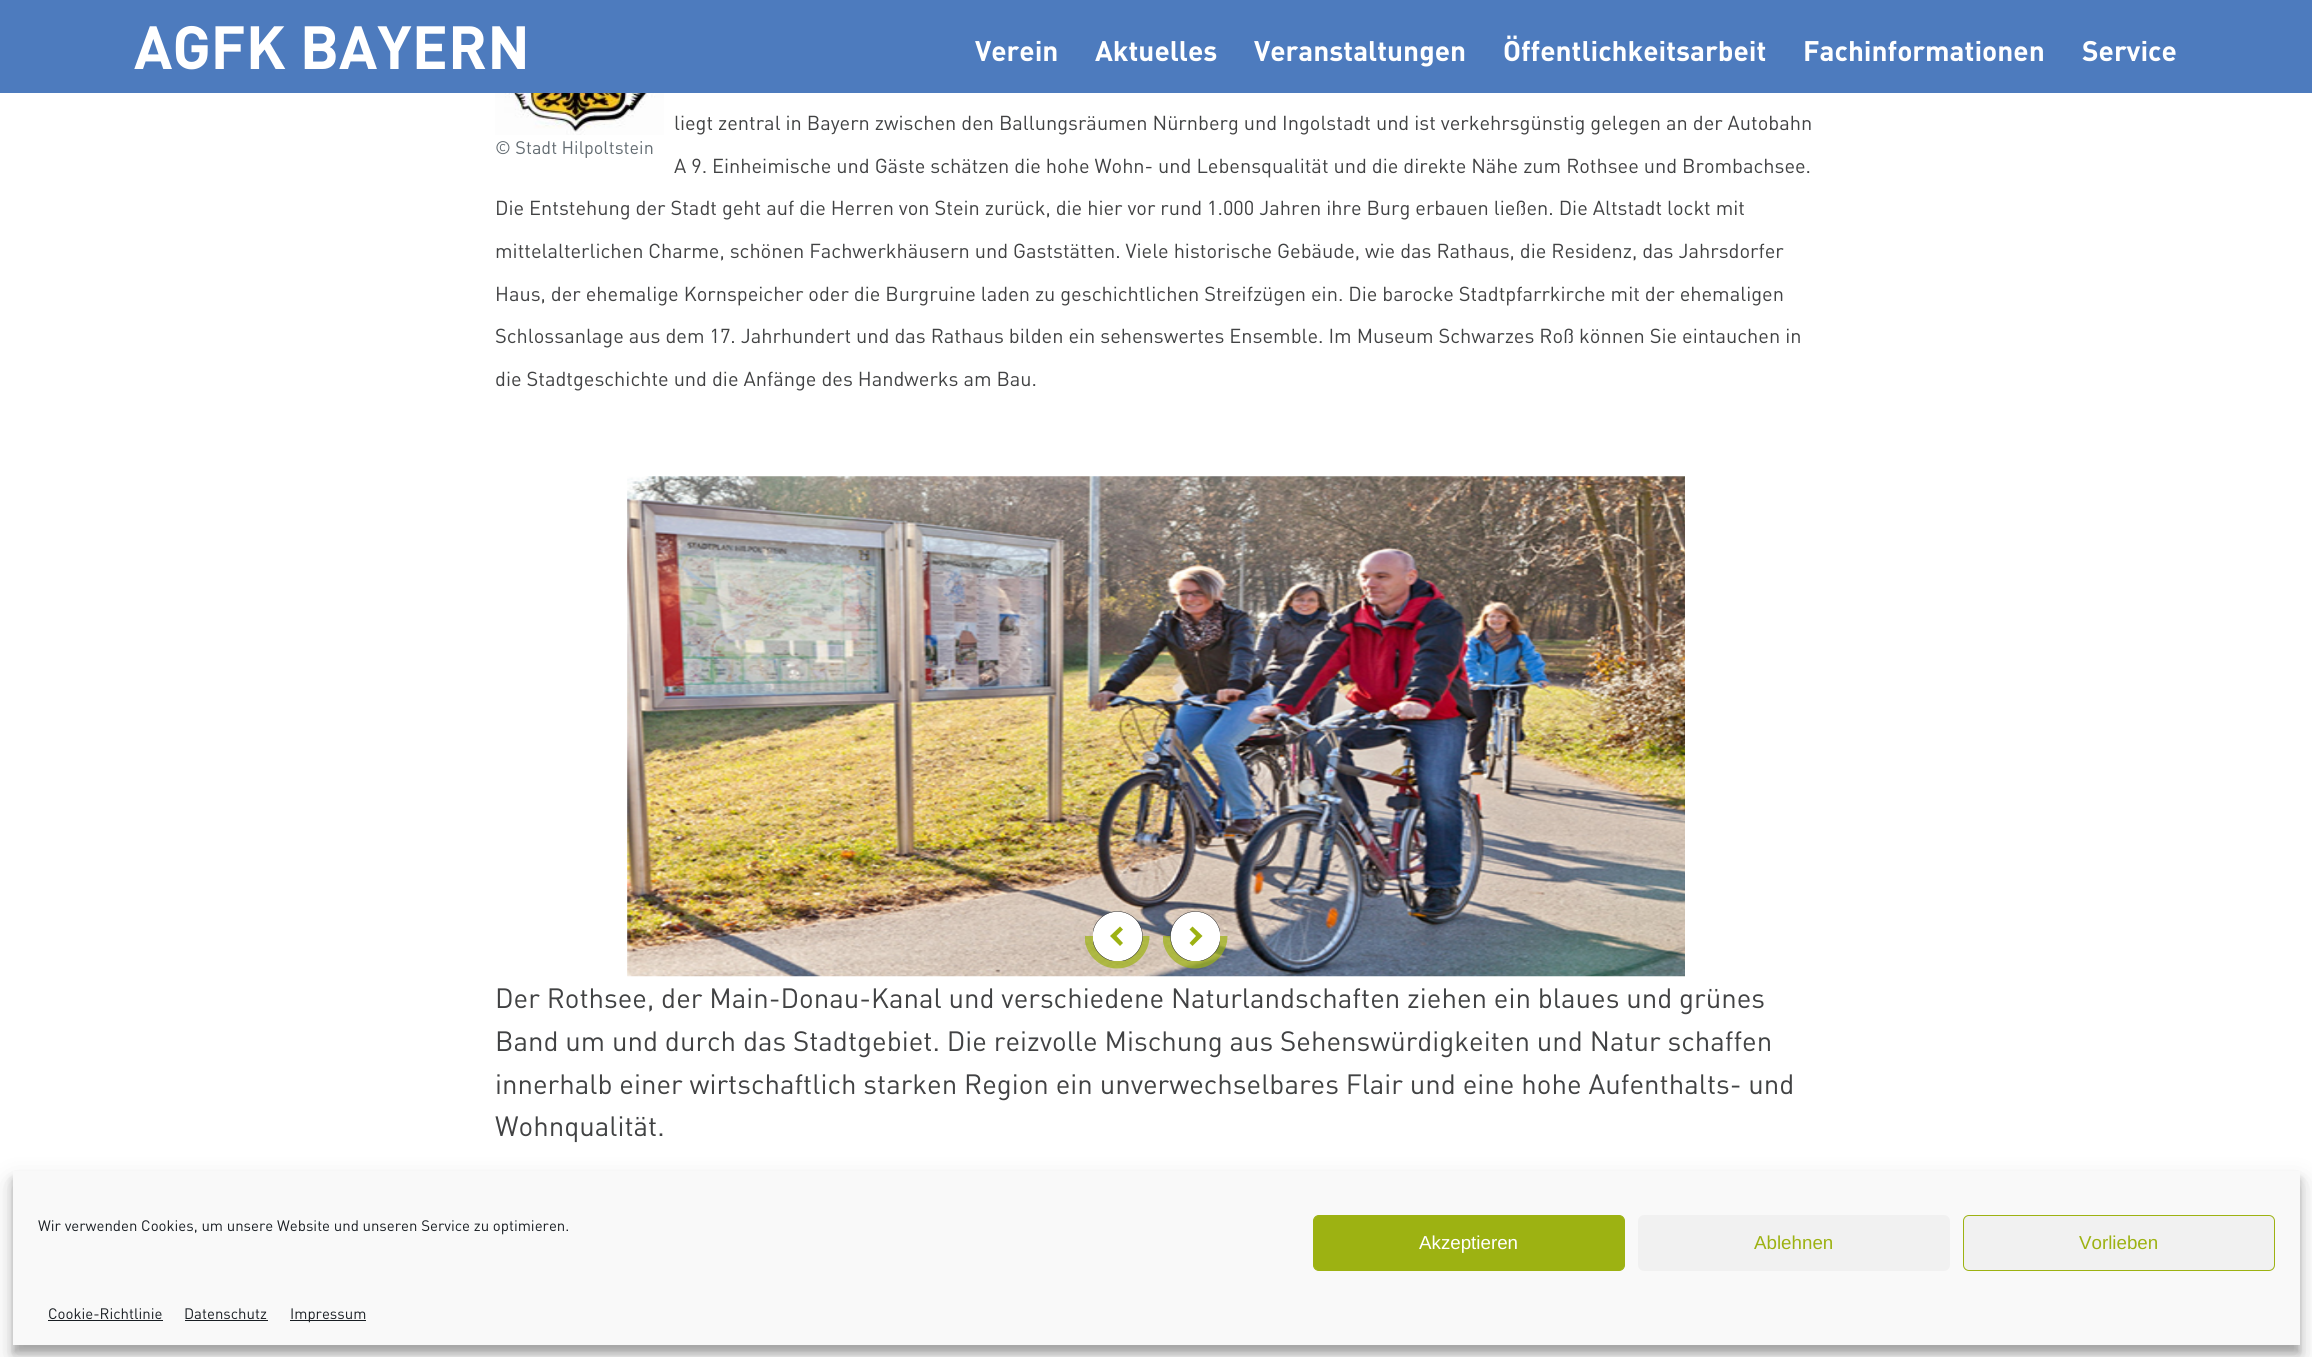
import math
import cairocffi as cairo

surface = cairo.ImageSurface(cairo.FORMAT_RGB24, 2312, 1357)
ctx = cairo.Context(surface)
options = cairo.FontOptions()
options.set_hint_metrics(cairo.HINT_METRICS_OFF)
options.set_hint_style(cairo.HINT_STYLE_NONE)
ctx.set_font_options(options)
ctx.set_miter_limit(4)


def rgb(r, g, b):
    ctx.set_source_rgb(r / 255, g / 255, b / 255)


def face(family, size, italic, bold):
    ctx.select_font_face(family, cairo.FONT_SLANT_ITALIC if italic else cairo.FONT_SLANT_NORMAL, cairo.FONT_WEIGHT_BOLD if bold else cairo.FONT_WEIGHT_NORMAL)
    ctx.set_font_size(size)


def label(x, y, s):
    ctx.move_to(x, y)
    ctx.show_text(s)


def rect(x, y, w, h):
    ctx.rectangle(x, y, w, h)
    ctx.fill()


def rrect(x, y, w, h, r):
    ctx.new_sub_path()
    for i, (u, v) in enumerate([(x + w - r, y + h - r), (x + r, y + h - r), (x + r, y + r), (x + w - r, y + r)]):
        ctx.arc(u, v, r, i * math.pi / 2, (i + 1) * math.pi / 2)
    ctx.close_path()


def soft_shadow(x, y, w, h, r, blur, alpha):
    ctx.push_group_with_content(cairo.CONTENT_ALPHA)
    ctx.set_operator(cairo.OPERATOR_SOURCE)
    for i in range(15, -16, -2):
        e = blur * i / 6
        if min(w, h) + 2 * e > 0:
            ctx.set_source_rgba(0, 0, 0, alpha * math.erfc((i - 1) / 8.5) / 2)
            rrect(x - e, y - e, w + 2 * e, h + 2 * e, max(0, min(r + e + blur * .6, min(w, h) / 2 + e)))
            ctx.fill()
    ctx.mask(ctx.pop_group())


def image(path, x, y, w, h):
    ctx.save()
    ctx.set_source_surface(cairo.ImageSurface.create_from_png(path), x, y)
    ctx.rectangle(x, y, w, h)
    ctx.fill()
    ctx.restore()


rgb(255, 255, 255)
ctx.paint()
rgb(77, 123, 190)
rect(0, 0, 2312, 93)
face('DIN', 60, 0, 1)
rgb(255, 255, 255)
label(134, 69, 'AGFK BAYERN')
face('DIN', 28, 0, 1)
label(975, 61, 'Verein')
label(1095, 61, 'Aktuelles')
label(1254, 61, 'Veranstaltungen')
label(1503, 61, 'Öffentlichkeitsarbeit')
label(1803, 61, 'Fachinformationen')
label(2082, 61, 'Service')
face('DIN', 20, 0, 0)
rgb(65, 66, 67)
label(674, 130, 'liegt zentral in Bayern zwischen den Ballungsräumen Nürnberg und Ingolstadt und ist verkehrsgünstig gelegen an der Autobahn')
label(674, 173, 'A 9. Einheimische und Gäste schätzen die hohe Wohn- und Lebensqualität und die direkte Nähe zum Rothsee und Brombachsee.')
label(495, 215, 'Die Entstehung der Stadt geht auf die Herren von Stein zurück, die hier vor rund 1.000 Jahren ihre Burg erbauen ließen. Die Altstadt lockt mit')
label(495, 258, 'mittelalterlichen Charme, schönen Fachwerkhäusern und Gaststätten. Viele historische Gebäude, wie das Rathaus, die Residenz, das Jahrsdorfer')
label(495, 301, 'Haus, der ehemalige Kornspeicher oder die Burgruine laden zu geschichtlichen Streifzügen ein. Die barocke Stadtpfarrkirche mit der ehemaligen')
label(495, 343, 'Schlossanlage aus dem 17. Jahrhundert und das Rathaus bilden ein sehenswertes Ensemble. Im Museum Schwarzes Roß können Sie eintauchen in')
label(495, 386, 'die Stadtgeschichte und die Anfänge des Handwerks am Bau.')
image('image0.png', 495, 93, 169, 42)
face('DIN', 18, 0, 0)
rgb(99, 108, 114)
label(495, 154, '© Stadt Hilpoltstein')
image('image1.png', 627, 476, 1058, 501)
ctx.save()
ctx.rectangle(1085, 936, 65, 33)
ctx.clip()
ctx.set_source_rgba(0.616, 0.698, 0.071, 0.7)
ctx.arc(1117, 936, 32.5, 0, 2 * math.pi)
ctx.fill()
ctx.restore()
ctx.save()
ctx.rectangle(1093, 911, 50, 50)
ctx.clip()
rgb(255, 255, 255)
ctx.arc(1117.5, 936.5, 25, 0, 2 * math.pi)
ctx.fill_preserve()
rgb(0, 0, 0)
ctx.set_line_width(0.4)
ctx.stroke()
ctx.restore()
rgb(157, 178, 18)
ctx.new_path()
ctx.move_to(1123, 943)
ctx.line_to(1116.5, 936)
ctx.line_to(1123, 929.5)
ctx.line_to(1120, 926.5)
ctx.line_to(1110, 936)
ctx.line_to(1120, 946)
ctx.close_path()
ctx.fill()
ctx.save()
ctx.rectangle(1163, 936, 65, 33)
ctx.clip()
ctx.set_source_rgba(0.616, 0.698, 0.071, 0.7)
ctx.arc(1195, 936, 32.5, 0, 2 * math.pi)
ctx.fill()
ctx.restore()
ctx.save()
ctx.rectangle(1170, 911, 50, 50)
ctx.clip()
rgb(255, 255, 255)
ctx.arc(1195.5, 936.5, 25, 0, 2 * math.pi)
ctx.fill_preserve()
rgb(0, 0, 0)
ctx.set_line_width(0.4)
ctx.stroke()
ctx.restore()
ctx.new_path()
ctx.move_to(1189.5, 929.5)
ctx.line_to(1196, 936)
ctx.line_to(1189.5, 943)
ctx.line_to(1192.5, 946)
ctx.line_to(1202.5, 936)
ctx.line_to(1192.5, 926.5)
ctx.close_path()
ctx.fill()
face('DIN', 27.6, 0, 0)
rgb(65, 66, 67)
label(495, 1008, 'Der Rothsee, der Main-Donau-Kanal und verschiedene Naturlandschaften ziehen ein blaues und grünes')
label(495, 1051, 'Band um und durch das Stadtgebiet. Die reizvolle Mischung aus Sehenswürdigkeiten und Natur schaffen')
label(495, 1094, 'innerhalb einer wirtschaftlich starken Region ein unverwechselbares Flair und eine hohe Aufenthalts- und')
label(495, 1136, 'Wohnqualität.')
rgb(0, 0, 0)
soft_shadow(13, 1179, 2287, 174, 0, 4, 0.23)
soft_shadow(13, 1184, 2287, 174, 0, 12.5, 0.19)
rgb(249, 249, 249)
rect(13, 1171, 2287, 174)
face('DIN', 15, 0, 0)
rgb(25, 30, 35)
label(38, 1231, 'Wir verwenden Cookies, um unsere Website und unseren Service zu optimieren.')
rgb(157, 178, 18)
rrect(1313.5, 1215.5, 311, 55, 5.5)
ctx.fill_preserve()
ctx.set_line_width(1)
ctx.stroke()
face('Liberation Sans', 18.75, 0, 0)
rgb(255, 255, 255)
label(1419, 1249, 'Akzeptieren')
rgb(241, 241, 241)
rrect(1638, 1215, 312, 56, 6)
ctx.fill()
rgb(157, 178, 18)
label(1754, 1249, 'Ablehnen')
rgb(241, 241, 241)
rrect(1963.5, 1215.5, 311, 55, 5.5)
ctx.fill_preserve()
rgb(157, 178, 18)
ctx.stroke()
label(2079, 1249, 'Vorlieben')
face('DIN', 15, 0, 0)
rgb(25, 30, 35)
label(48, 1319, 'Cookie-Richtlinie')
rect(48, 1320, 115, 1)
label(184, 1319, 'Datenschutz')
rect(185, 1320, 83, 1)
rect(290, 1320, 76, 1)
label(290, 1319, 'Impressum')
surface.write_to_png('render.png')
